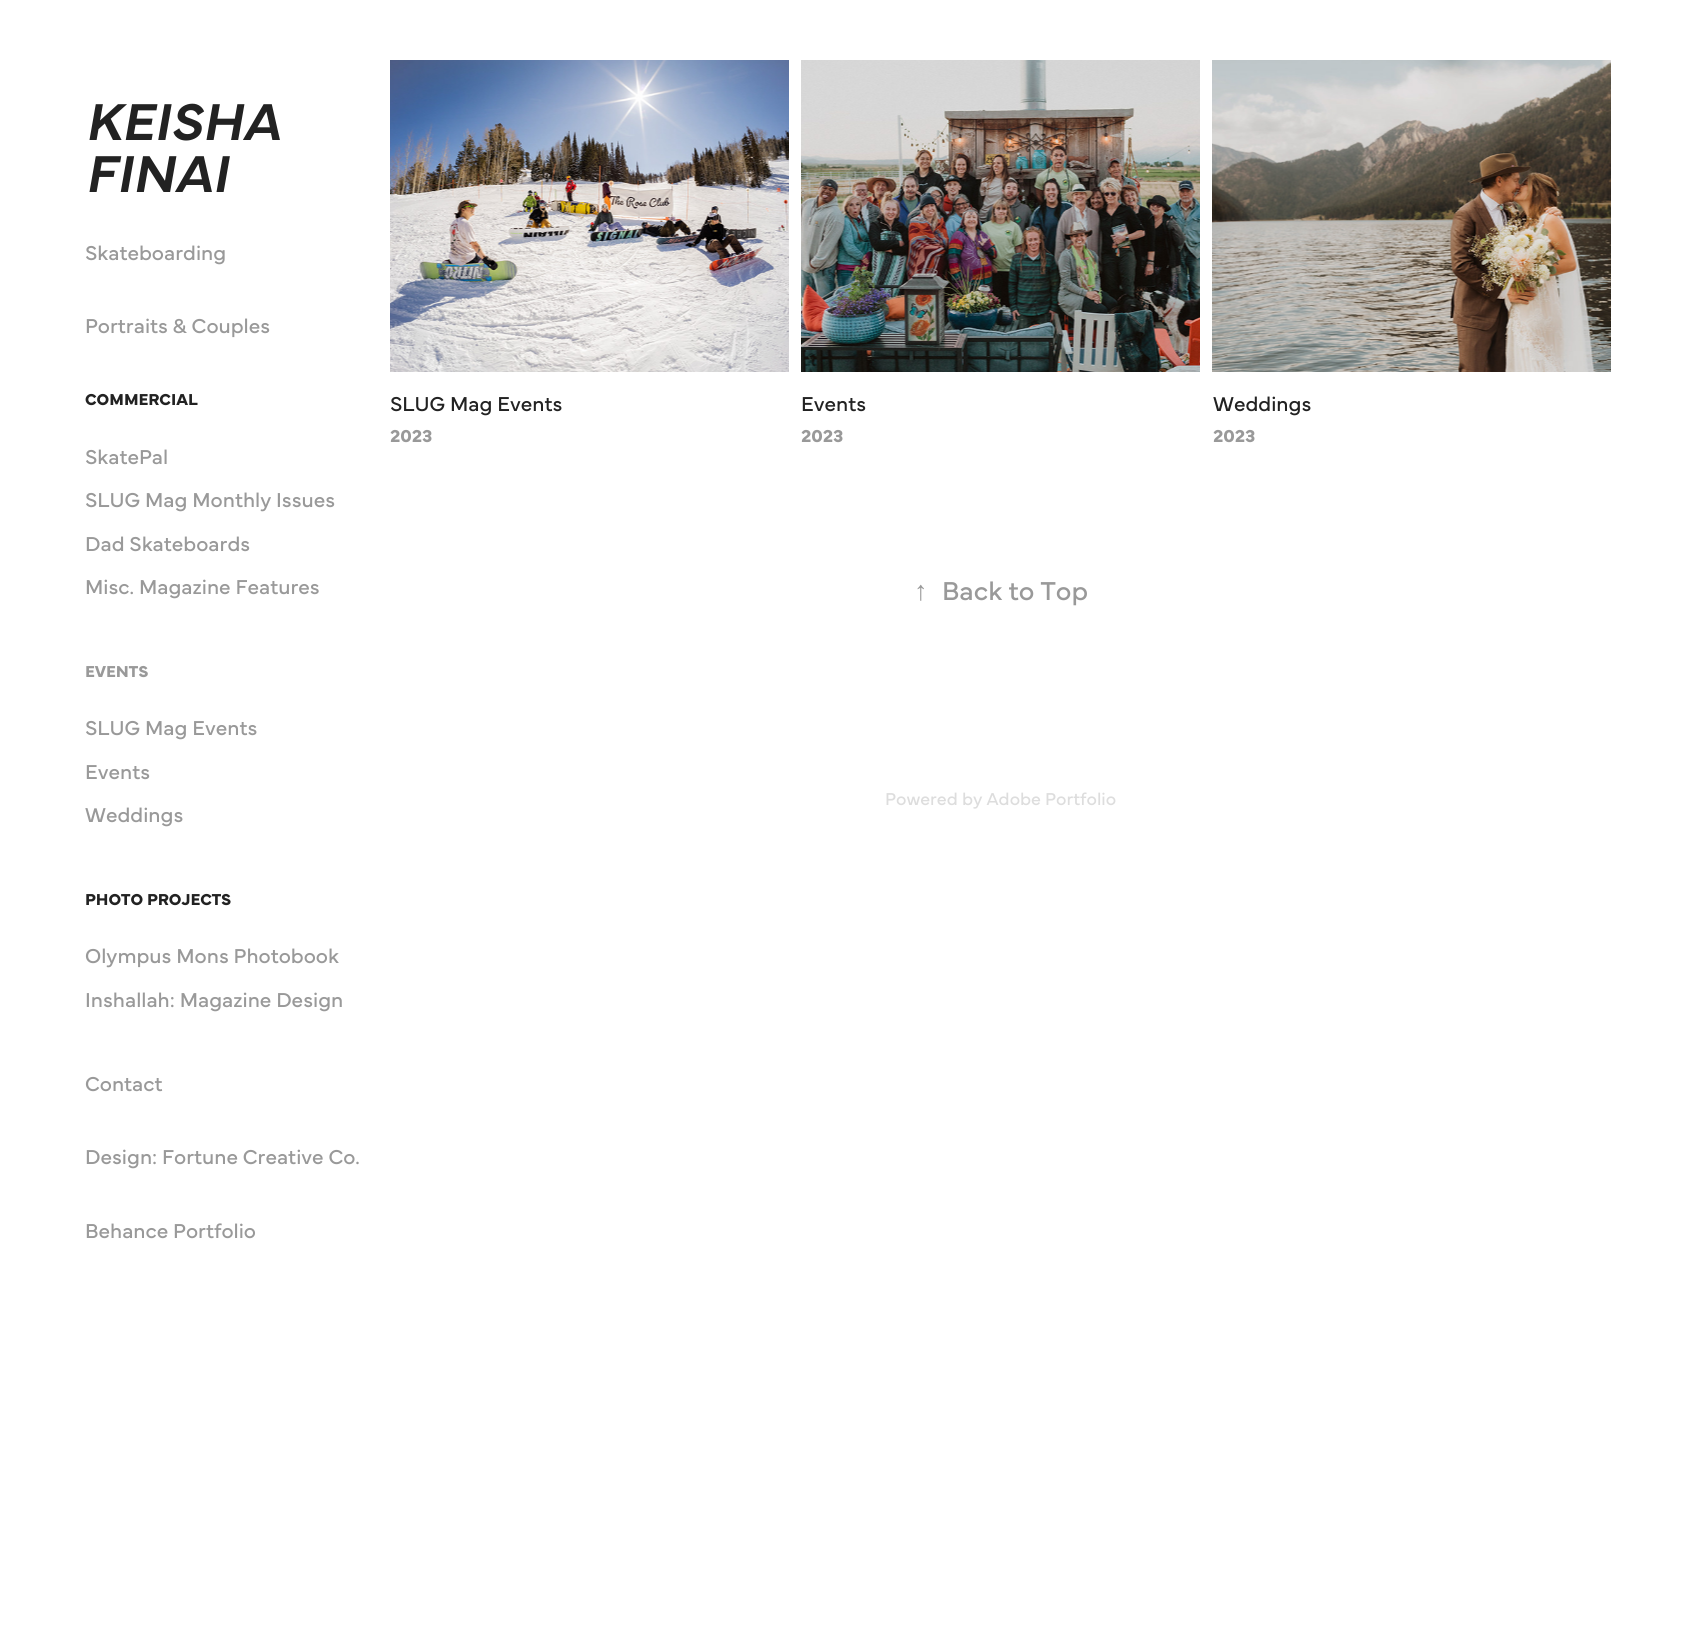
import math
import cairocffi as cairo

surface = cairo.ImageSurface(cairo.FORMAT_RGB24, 1696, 1631)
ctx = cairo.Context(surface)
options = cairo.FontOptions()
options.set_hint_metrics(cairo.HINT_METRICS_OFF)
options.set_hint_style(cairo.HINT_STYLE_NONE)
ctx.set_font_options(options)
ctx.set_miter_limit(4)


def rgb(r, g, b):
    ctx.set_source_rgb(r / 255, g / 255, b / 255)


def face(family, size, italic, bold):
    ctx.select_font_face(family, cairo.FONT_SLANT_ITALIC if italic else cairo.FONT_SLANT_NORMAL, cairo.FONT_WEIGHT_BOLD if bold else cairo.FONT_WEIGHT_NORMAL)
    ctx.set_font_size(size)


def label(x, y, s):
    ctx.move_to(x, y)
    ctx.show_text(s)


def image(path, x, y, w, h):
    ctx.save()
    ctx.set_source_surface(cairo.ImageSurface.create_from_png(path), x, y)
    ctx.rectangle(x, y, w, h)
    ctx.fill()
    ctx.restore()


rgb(255, 255, 255)
ctx.paint()
face('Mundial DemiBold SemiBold', 54, 1, 0)
rgb(34, 34, 34)
label(85, 140, 'KEISHA')
label(85, 192, 'FINAI')
face('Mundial', 21, 0, 0)
rgb(153, 153, 153)
label(85, 260, 'Skateboarding')
label(85, 333, 'Portraits & Couples')
face('Mundial', 16.5, 0, 1)
rgb(34, 34, 34)
label(85, 405, 'COMMERCIAL')
face('Mundial', 21, 0, 0)
rgb(153, 153, 153)
label(85, 464, 'SkatePal')
label(85, 507, 'SLUG Mag Monthly Issues')
label(85, 551, 'Dad Skateboards')
label(85, 594, 'Misc. Magazine Features')
face('Mundial', 16.5, 0, 1)
label(85, 677, 'EVENTS')
face('Mundial', 21, 0, 0)
label(85, 735, 'SLUG Mag Events')
label(85, 779, 'Events')
label(85, 822, 'Weddings')
face('Mundial', 16.5, 0, 1)
rgb(34, 34, 34)
label(85, 905, 'PHOTO PROJECTS')
face('Mundial', 21, 0, 0)
rgb(153, 153, 153)
label(85, 963, 'Olympus Mons Photobook')
label(85, 1007, 'Inshallah: Magazine Design')
label(85, 1091, 'Contact')
label(85, 1164, 'Design: Fortune Creative Co.')
label(85, 1238, 'Behance Portfolio')
image('image0.png', 390, 60, 399, 312)
rgb(34, 34, 34)
label(390, 411, 'SLUG Mag Events')
face('Mundial', 18, 0, 1)
rgb(153, 153, 153)
label(390, 442, '2023')
image('image1.png', 801, 60, 399, 312)
face('Mundial', 21, 0, 0)
rgb(34, 34, 34)
label(801, 411, 'Events')
face('Mundial', 18, 0, 1)
rgb(153, 153, 153)
label(801, 442, '2023')
image('image2.png', 1212, 60, 399, 312)
face('Mundial', 21, 0, 0)
rgb(34, 34, 34)
label(1213, 411, 'Weddings')
face('Mundial', 18, 0, 1)
rgb(153, 153, 153)
label(1213, 442, '2023')
face('Liberation Serif', 27, 0, 0)
label(914, 600, '↑')
face('Mundial', 27, 0, 0)
label(942, 600, 'Back to Top')
face('Mundial', 18, 0, 0)
rgb(221, 221, 221)
label(885, 805, 'Powered by Adobe Portfolio')
surface.write_to_png('render.png')
